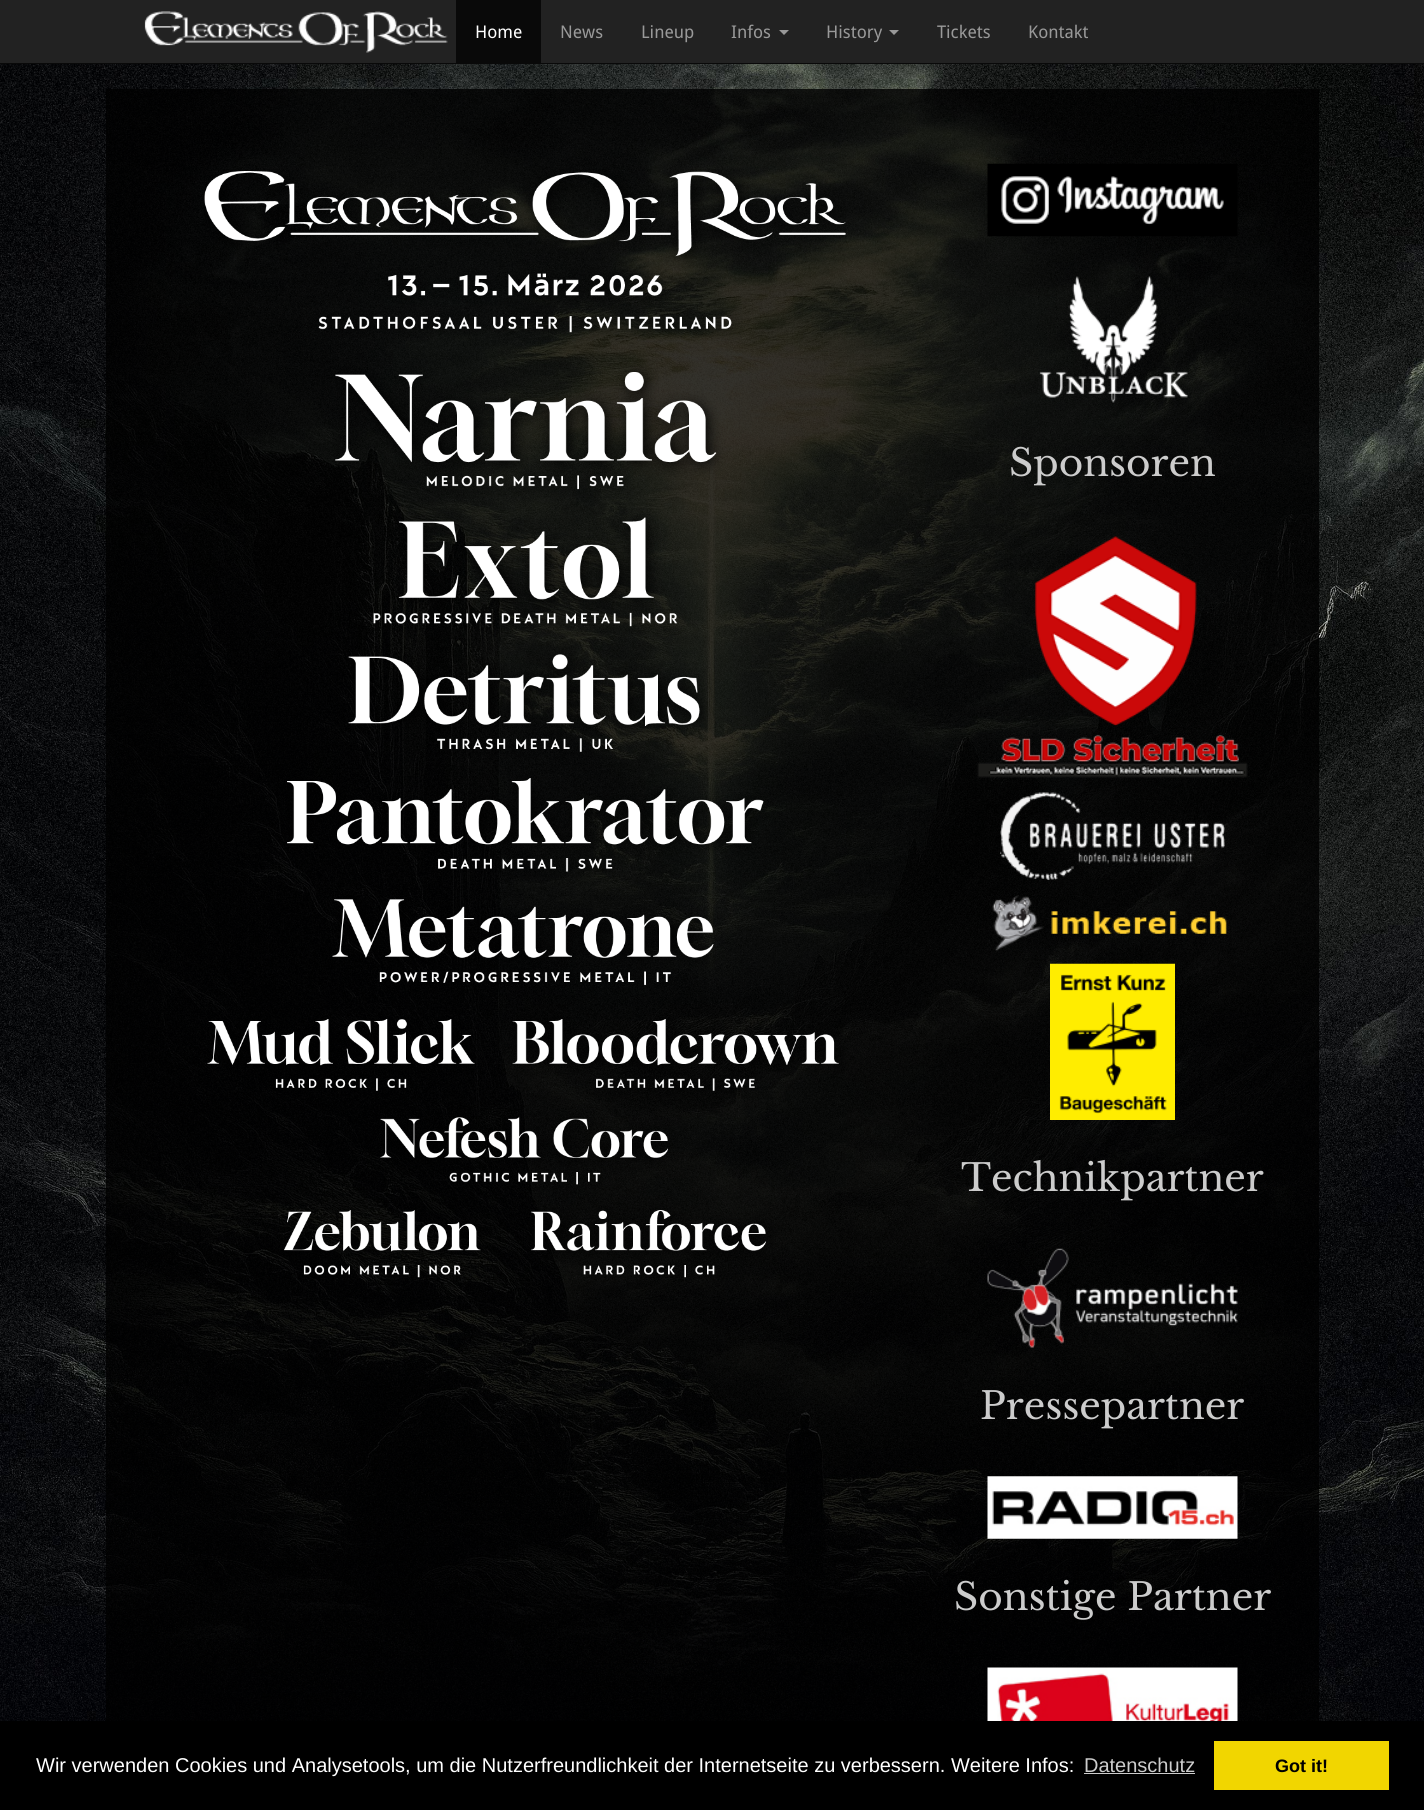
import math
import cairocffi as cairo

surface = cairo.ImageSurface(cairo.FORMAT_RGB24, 1424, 1810)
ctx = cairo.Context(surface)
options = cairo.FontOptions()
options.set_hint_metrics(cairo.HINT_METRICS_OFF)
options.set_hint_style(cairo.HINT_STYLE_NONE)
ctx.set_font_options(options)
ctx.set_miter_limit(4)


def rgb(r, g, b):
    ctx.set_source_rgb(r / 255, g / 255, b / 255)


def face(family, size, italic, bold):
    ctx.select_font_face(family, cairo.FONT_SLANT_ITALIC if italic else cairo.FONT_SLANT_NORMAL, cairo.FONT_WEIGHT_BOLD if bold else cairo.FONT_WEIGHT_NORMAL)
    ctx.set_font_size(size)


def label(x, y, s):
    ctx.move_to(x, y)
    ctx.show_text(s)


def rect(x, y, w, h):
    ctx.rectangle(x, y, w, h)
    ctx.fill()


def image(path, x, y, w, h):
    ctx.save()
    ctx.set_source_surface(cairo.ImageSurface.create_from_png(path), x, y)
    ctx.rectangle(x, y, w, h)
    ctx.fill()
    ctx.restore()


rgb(255, 255, 255)
ctx.paint()
image('image0.png', 0, 64, 1424, 1657)
rgb(34, 34, 34)
rect(0, 0, 1424, 63)
rgb(9, 9, 9)
rect(0, 63, 1424, 1)
image('image1.png', 144, 11, 304, 42)
rect(456, 0, 85, 63)
face('Droid Sans', 17.5, 0, 0)
rgb(255, 255, 255)
label(475, 38, 'Home')
rgb(153, 153, 153)
label(560, 38, 'News')
label(641, 38, 'Lineup')
label(731, 38, 'Infos')
ctx.new_path()
ctx.move_to(779, 30)
ctx.line_to(789, 30)
ctx.line_to(784, 35)
ctx.close_path()
ctx.fill()
label(826, 38, 'History')
ctx.new_path()
ctx.move_to(889, 30)
ctx.line_to(899, 30)
ctx.line_to(894, 35)
ctx.close_path()
ctx.fill()
label(937, 38, 'Tickets')
label(1028, 38, 'Kontakt')
ctx.set_source_rgba(0, 0, 0, 0.8)
rect(106, 89, 1213, 1632)
image('image2.png', 204, 169, 642, 1109)
image('image3.png', 987, 163, 251, 74)
image('image4.png', 1039, 276, 149, 127)
face('Libre Baskerville', 37.5, 0, 0)
rgb(204, 204, 204)
label(1009, 476, 'Sponsoren')
image('image5.png', 977, 536, 271, 242)
image('image6.png', 1000, 792, 225, 88)
image('image7.png', 992, 895, 235, 56)
image('image8.png', 1050, 963, 125, 157)
label(961, 1191, 'Technikpartner')
image('image9.png', 987, 1248, 251, 100)
label(980, 1419, 'Pressepartner')
image('image10.png', 987, 1476, 251, 63)
label(954, 1610, 'Sonstige Partner')
image('image11.png', 987, 1667, 251, 54)
rgb(0, 0, 0)
rect(0, 1721, 1424, 89)
face('Liberation Sans', 20, 0, 0)
rgb(255, 255, 255)
label(36, 1772, 'Wir verwenden Cookies und Analysetools, um die Nutzerfreundlichkeit der Internetseite zu verbessern. Weitere Infos:')
rgb(204, 204, 204)
label(1084, 1772, 'Datenschutz')
rect(1084, 1773, 111, 1)
rgb(241, 214, 0)
rect(1214, 1741, 175, 49)
face('Liberation Sans', 18, 0, 1)
rgb(0, 0, 0)
label(1275, 1772, 'Got it!')
surface.write_to_png('render.png')
